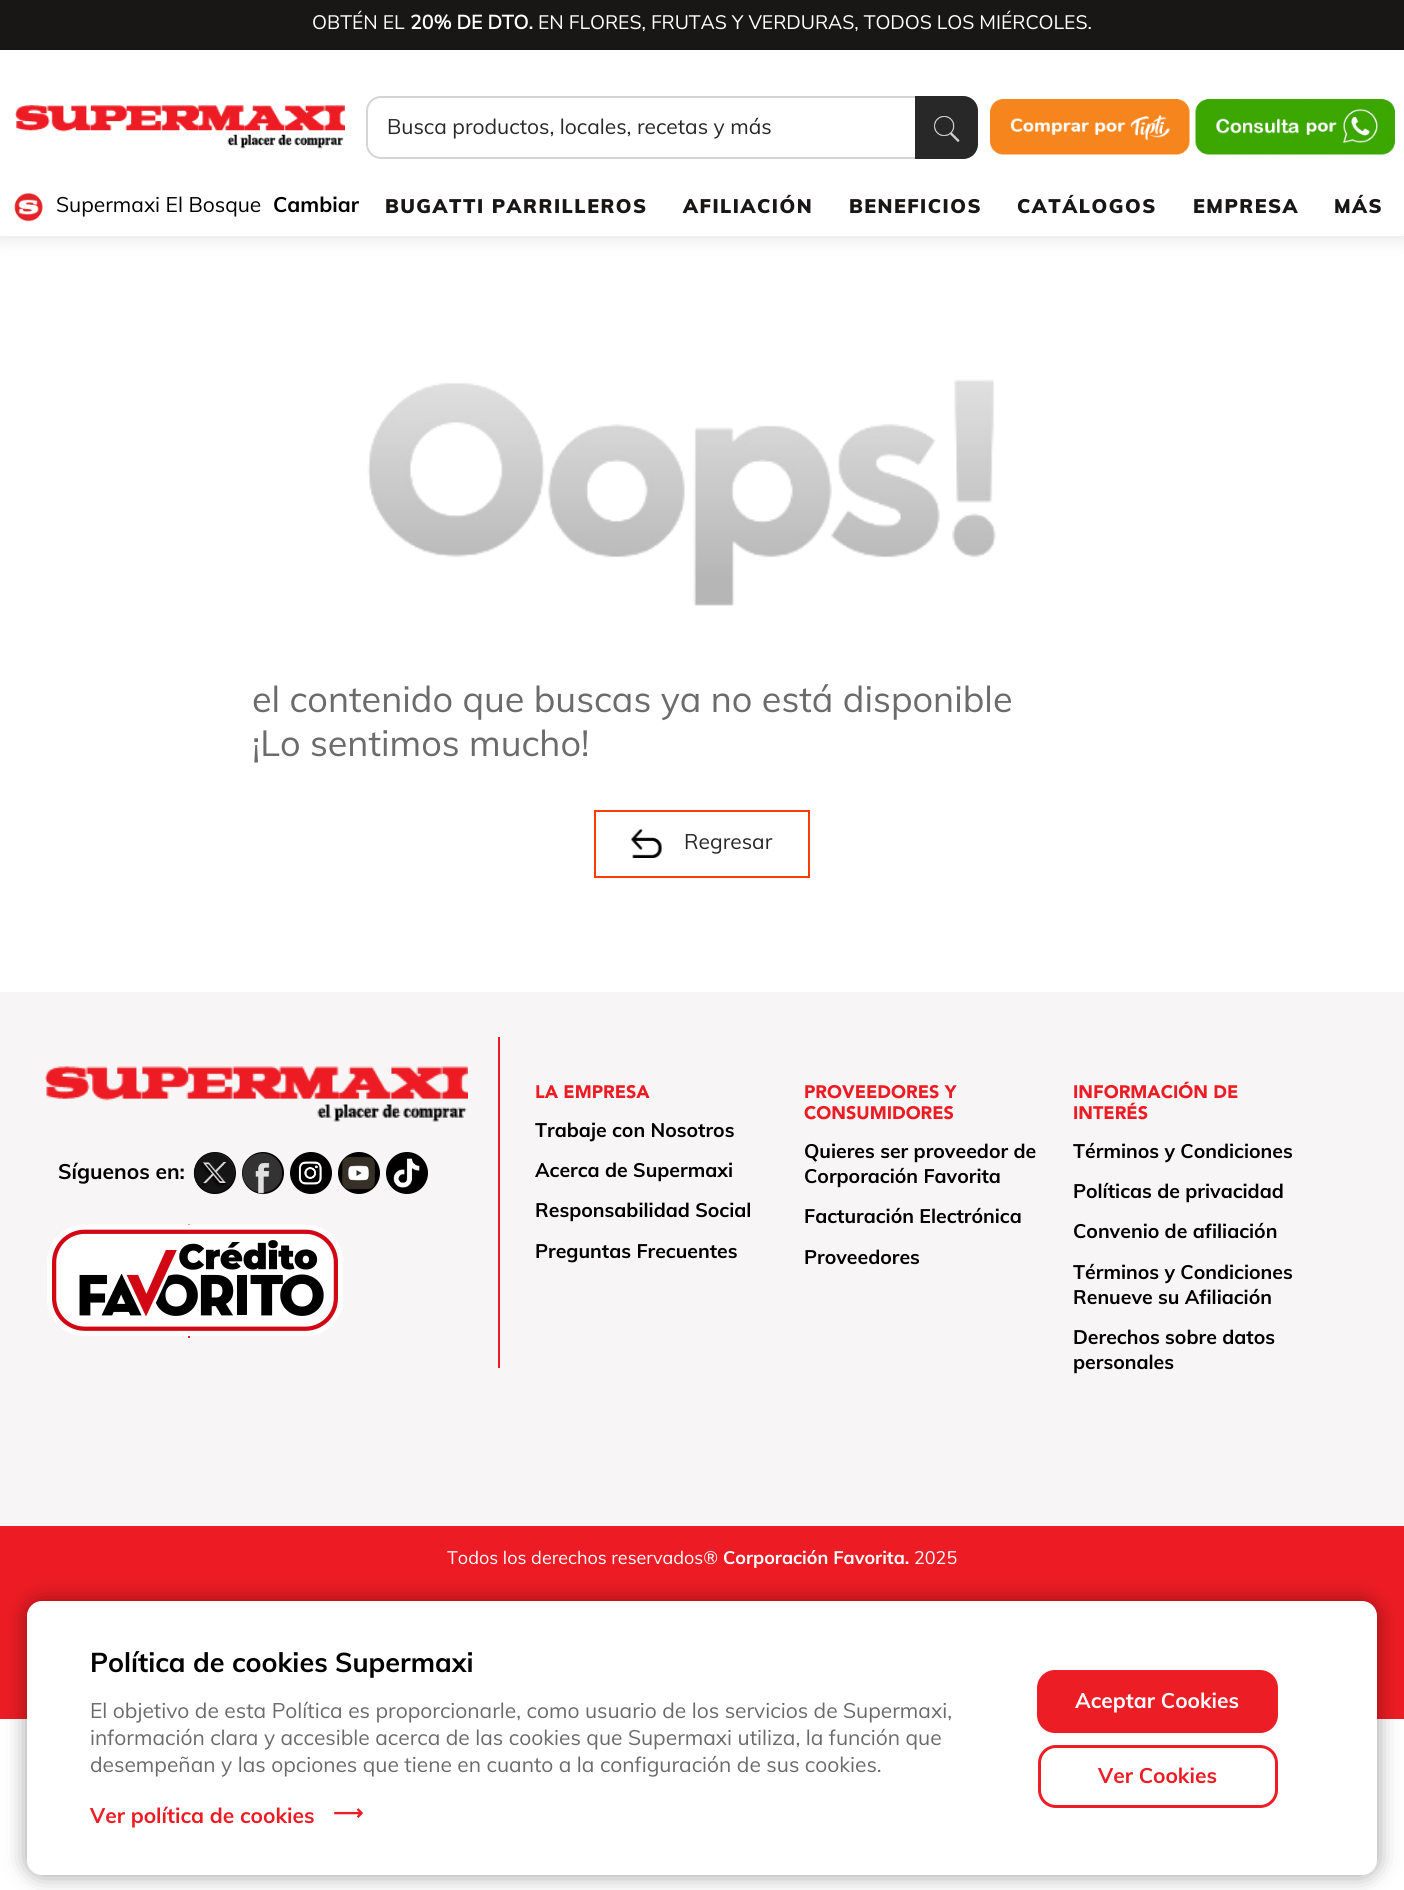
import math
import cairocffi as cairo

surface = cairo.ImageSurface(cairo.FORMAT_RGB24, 1404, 1890)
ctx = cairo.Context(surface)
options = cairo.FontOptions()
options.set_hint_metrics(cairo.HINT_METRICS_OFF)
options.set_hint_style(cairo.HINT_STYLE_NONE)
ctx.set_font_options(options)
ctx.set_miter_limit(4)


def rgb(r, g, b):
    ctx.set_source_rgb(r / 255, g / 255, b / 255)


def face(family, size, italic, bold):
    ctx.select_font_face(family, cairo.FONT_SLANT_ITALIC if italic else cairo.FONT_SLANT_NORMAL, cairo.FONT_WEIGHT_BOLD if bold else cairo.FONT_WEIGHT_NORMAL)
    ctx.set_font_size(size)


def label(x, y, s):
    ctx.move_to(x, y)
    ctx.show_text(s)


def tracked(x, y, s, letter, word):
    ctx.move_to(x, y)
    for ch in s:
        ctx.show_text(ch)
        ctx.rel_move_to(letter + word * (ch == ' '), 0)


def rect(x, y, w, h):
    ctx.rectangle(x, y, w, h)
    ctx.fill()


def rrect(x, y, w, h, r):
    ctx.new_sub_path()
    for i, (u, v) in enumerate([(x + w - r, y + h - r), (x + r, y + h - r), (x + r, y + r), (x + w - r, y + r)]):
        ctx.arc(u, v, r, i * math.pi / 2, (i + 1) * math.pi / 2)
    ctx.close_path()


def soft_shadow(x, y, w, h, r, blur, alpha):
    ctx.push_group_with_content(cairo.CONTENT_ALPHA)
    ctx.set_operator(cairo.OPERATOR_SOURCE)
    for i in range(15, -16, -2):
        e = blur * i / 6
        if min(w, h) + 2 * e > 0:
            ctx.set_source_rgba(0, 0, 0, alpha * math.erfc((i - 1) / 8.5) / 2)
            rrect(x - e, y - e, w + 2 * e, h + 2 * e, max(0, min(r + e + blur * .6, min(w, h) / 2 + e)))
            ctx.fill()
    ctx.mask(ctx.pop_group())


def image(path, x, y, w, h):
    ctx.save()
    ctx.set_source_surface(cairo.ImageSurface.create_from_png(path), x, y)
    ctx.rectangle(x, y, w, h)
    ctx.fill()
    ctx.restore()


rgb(255, 255, 255)
ctx.paint()
rgb(0, 0, 0)
soft_shadow(-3, -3, 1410, 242, 0, 9, 0.1)
rgb(255, 255, 255)
rect(0, 50, 1404, 186)
rgb(25, 22, 22)
rect(0, 0, 1404, 50)
face('Nunito Sans ExtraLight', 19.5, 0, 0)
rgb(255, 255, 255)
label(312, 29, 'OBTÉN EL')
face('Nunito Sans', 19.5, 0, 1)
label(410, 29, '20% DE DTO.')
face('Nunito Sans ExtraLight', 19.5, 0, 0)
label(538, 29, 'EN FLORES, FRUTAS Y VERDURAS, TODOS LOS MIÉRCOLES.')
image('image0.png', 15, 105, 330, 44)
rrect(367, 97, 610, 61, 14)
rgb(213, 213, 213)
ctx.stroke()
face('Muli', 21, 0, 0)
rgb(40, 40, 40)
label(387, 134, 'Busca productos, locales, recetas y más')
ctx.new_path()
ctx.move_to(915, 96)
ctx.line_to(963, 96)
ctx.curve_to(971.5, 96, 978, 102.5, 978, 111)
ctx.line_to(978, 144)
ctx.curve_to(978, 152.5, 971.5, 159, 963, 159)
ctx.line_to(915, 159)
ctx.close_path()
ctx.fill()
image('image1.png', 934, 116, 26, 26)
image('image2.png', 990, 99, 200, 56)
image('image3.png', 1195, 99, 200, 56)
image('image4.png', 14, 192, 29, 30)
rgb(0, 0, 0)
label(56, 212, 'Supermaxi El Bosque')
face('Muli', 21, 0, 1)
label(273, 212, 'Cambiar')
face('Muli Black', 19.5, 0, 0)
rgb(25, 22, 22)
tracked(385, 213, 'BUGATTI PARRILLEROS', 1.5, 0)
tracked(683, 213, 'AFILIACIÓN', 1.5, 0)
tracked(849, 213, 'BENEFICIOS', 1.5, 0)
tracked(1017, 213, 'CATÁLOGOS', 1.5, 0)
tracked(1193, 213, 'EMPRESA', 1.5, 0)
tracked(1334, 213, 'MÁS', 1.5, 0)
image('image5.png', 367, 379, 629, 227)
face('Muli', 36, 0, 0)
rgb(107, 107, 107)
label(252, 712, 'el contenido que buscas ya no está disponible')
label(252, 756, '¡Lo sentimos mucho!')
ctx.rectangle(595, 811, 214, 66)
rgb(252, 60, 6)
ctx.stroke()
image('image6.png', 631, 829, 31, 29)
face('Muli', 21, 0, 0)
rgb(40, 40, 40)
label(684, 849, 'Regresar')
rgb(247, 245, 245)
rect(0, 992, 1404, 534)
rgb(237, 28, 36)
rect(498, 1037, 2, 331)
image('image7.png', 45, 1066, 423, 56)
face('Muli', 21, 0, 1)
rgb(0, 0, 0)
label(58, 1179, 'Síguenos en:')
ctx.new_path()
ctx.arc(215, 1173, 21, 0, 2 * math.pi)
ctx.fill()
image('image8.png', 193, 1152, 42, 42)
ctx.arc(263, 1173, 21, 0, 2 * math.pi)
ctx.fill()
image('image9.png', 242, 1153, 40, 41)
ctx.arc(311, 1173, 21, 0, 2 * math.pi)
ctx.fill()
image('image10.png', 298, 1161, 24, 24)
ctx.arc(359, 1173, 21, 0, 2 * math.pi)
ctx.fill()
image('image11.png', 342, 1156, 33, 34)
ctx.arc(407, 1173, 21, 0, 2 * math.pi)
ctx.fill()
image('image12.png', 393, 1158, 27, 30)
rgb(237, 28, 36)
rect(188, 1224, 2, 114)
image('image13.png', 47, 1224, 296, 112)
face('Avenir Black', 18, 0, 0)
label(535, 1098, 'LA EMPRESA')
face('Muli', 19.5, 0, 1)
rgb(0, 0, 0)
label(535, 1137, 'Trabaje con Nosotros')
label(535, 1177, 'Acerca de Supermaxi')
label(535, 1217, 'Responsabilidad Social')
label(535, 1258, 'Preguntas Frecuentes')
face('Avenir Black', 18, 0, 0)
rgb(237, 28, 36)
label(804, 1098, 'PROVEEDORES Y')
label(804, 1119, 'CONSUMIDORES')
face('Muli', 19.5, 0, 1)
rgb(0, 0, 0)
label(804, 1158, 'Quieres ser proveedor de')
label(804, 1183, 'Corporación Favorita')
label(804, 1223, 'Facturación Electrónica')
label(804, 1264, 'Proveedores')
face('Avenir Black', 18, 0, 0)
rgb(237, 28, 36)
label(1073, 1098, 'INFORMACIÓN DE')
label(1073, 1119, 'INTERÉS')
face('Muli', 19.5, 0, 1)
rgb(0, 0, 0)
label(1073, 1158, 'Términos y Condiciones')
label(1073, 1198, 'Políticas de privacidad')
label(1073, 1238, 'Convenio de afiliación')
label(1073, 1279, 'Términos y Condiciones')
label(1073, 1304, 'Renueve su Afiliación')
label(1073, 1344, 'Derechos sobre datos')
label(1073, 1369, 'personales')
rgb(237, 28, 36)
rect(0, 1526, 1404, 193)
face('Muli', 18, 0, 0)
rgb(255, 255, 255)
label(447, 1564, 'Todos los derechos reservados®')
face('Muli', 18, 0, 1)
label(723, 1564, 'Corporación Favorita.')
face('Muli', 18, 0, 0)
label(914, 1564, '2025')
rgb(0, 0, 0)
soft_shadow(27, 1601, 1350, 274, 15, 11, 0.4)
rgb(255, 255, 255)
rrect(27, 1601, 1350, 274, 15)
ctx.fill()
face('Muli', 27, 0, 1)
rgb(0, 0, 0)
label(90, 1672, 'Política de cookies Supermaxi')
face('Muli', 21, 0, 0)
rgb(107, 107, 107)
label(90, 1718, 'El objetivo de esta Política es proporcionarle, como usuario de los servicios de Supermaxi,')
label(90, 1745, 'información clara y accesible acerca de las cookies que Supermaxi utiliza, la función que')
label(90, 1772, 'desempeñan y las opciones que tiene en cuanto a la configuración de sus cookies.')
face('Muli', 21, 0, 1)
rgb(237, 28, 36)
label(90, 1823, 'Ver política de cookies')
face('DejaVu Sans', 21, 0, 1)
label(333, 1820, '⟶')
rgb(237, 29, 37)
rrect(1038.5, 1671.5, 238, 60, 16.5)
ctx.fill_preserve()
ctx.set_line_width(3)
ctx.stroke()
face('Muli', 21, 0, 1)
rgb(255, 255, 255)
label(1075, 1708, 'Aceptar Cookies')
rrect(1039.5, 1746.5, 237, 60, 16.5)
rgb(237, 29, 37)
ctx.stroke()
rgb(237, 28, 36)
label(1098, 1783, 'Ver Cookies')
surface.write_to_png('render.png')
